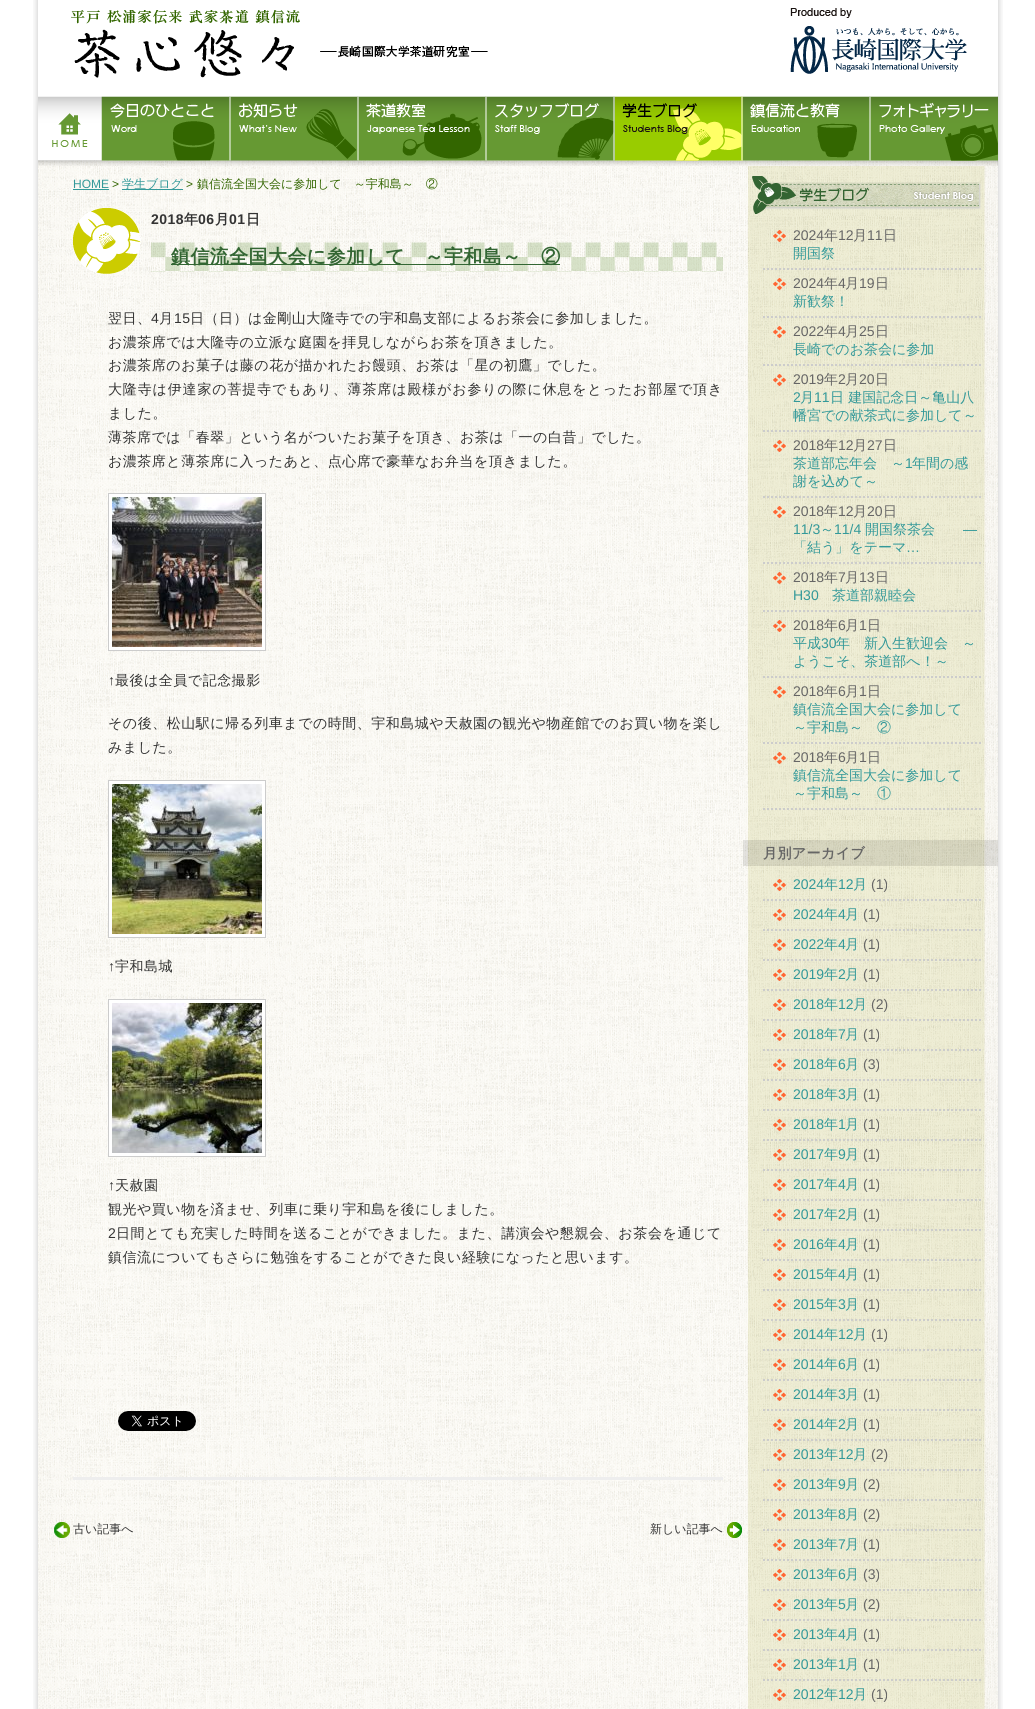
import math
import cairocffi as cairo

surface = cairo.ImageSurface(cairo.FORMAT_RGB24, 1035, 1709)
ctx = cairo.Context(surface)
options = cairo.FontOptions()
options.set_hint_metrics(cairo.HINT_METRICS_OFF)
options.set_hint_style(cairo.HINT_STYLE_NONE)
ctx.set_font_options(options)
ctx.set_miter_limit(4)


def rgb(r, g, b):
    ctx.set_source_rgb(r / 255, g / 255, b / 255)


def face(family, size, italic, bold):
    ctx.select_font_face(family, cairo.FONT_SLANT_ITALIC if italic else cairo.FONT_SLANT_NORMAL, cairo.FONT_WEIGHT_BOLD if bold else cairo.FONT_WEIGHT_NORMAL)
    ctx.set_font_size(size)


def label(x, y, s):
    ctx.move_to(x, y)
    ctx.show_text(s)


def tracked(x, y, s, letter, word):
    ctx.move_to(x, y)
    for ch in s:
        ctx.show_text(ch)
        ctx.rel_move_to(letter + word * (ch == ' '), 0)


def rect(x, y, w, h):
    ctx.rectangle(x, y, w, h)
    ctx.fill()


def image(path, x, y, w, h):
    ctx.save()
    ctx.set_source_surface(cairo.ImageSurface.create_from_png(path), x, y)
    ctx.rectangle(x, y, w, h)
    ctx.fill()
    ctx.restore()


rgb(255, 255, 255)
ctx.paint()
image('image0.png', 33, 0, 970, 1709)
image('image1.png', 38, 166, 960, 1543)
rgb(255, 255, 255)
rect(997, 0, 1, 161)
image('image2.png', 71, 10, 417, 68)
image('image3.png', 790, 8, 177, 66)
image('image4.png', 38, 96, 64, 70)
image('image5.png', 102, 96, 129, 70)
image('image6.png', 231, 96, 128, 70)
image('image7.png', 359, 96, 128, 70)
image('image8.png', 487, 96, 128, 70)
image('image9.png', 615, 96, 128, 70)
image('image10.png', 743, 96, 128, 70)
image('image11.png', 871, 96, 127, 70)
image('image12.png', 748, 166, 238, 1543)
face('Liberation Sans', 12, 0, 0)
rgb(51, 153, 153)
label(73, 188, 'HOME')
rect(73, 189, 36, 1)
rgb(51, 102, 0)
label(112, 188, '>')
rgb(51, 153, 153)
rect(122, 189, 61, 1)
face('WenQuanYi Zen Hei Medium', 12, 0, 0)
label(122, 188, '学生ブログ')
face('Liberation Sans', 12, 0, 0)
rgb(51, 102, 0)
label(186, 188, '>')
face('WenQuanYi Zen Hei Medium', 12, 0, 0)
label(197, 188, '鎮信流全国大会に参加して　～宇和島～　②')
image('image13.png', 73, 208, 68, 66)
face('Liberation Sans', 14, 0, 1)
rgb(51, 51, 51)
tracked(151, 224, '2018', 0.5, 0)
face('WenQuanYi Zen Hei', 14, 0, 1)
tracked(184, 224, '年', 0.5, 0)
face('Liberation Sans', 14, 0, 1)
tracked(198, 224, '06', 0.5, 0)
face('WenQuanYi Zen Hei', 14, 0, 1)
tracked(215, 224, '月', 0.5, 0)
face('Liberation Sans', 14, 0, 1)
tracked(229, 224, '01', 0.5, 0)
face('WenQuanYi Zen Hei', 14, 0, 1)
tracked(246, 224, '日', 0.5, 0)
image('image14.png', 151, 242, 572, 30)
rgb(51, 102, 51)
rect(171, 264, 389, 1)
face('WenQuanYi Zen Hei', 19, 0, 1)
tracked(171, 263, '鎮信流全国大会に参加して　～宇和島～　②', 0.4, 0)
rgb(238, 238, 238)
rect(73, 1477, 650, 3)
face('WenQuanYi Zen Hei Medium', 14, 0, 0)
rgb(51, 51, 51)
tracked(108, 323, '翌日、', 0.5, 0)
face('Liberation Sans', 14, 0, 0)
tracked(151, 323, '4', 0.5, 0)
face('WenQuanYi Zen Hei Medium', 14, 0, 0)
tracked(159, 323, '月', 0.5, 0)
face('Liberation Sans', 14, 0, 0)
tracked(174, 323, '15', 0.5, 0)
face('WenQuanYi Zen Hei Medium', 14, 0, 0)
tracked(190, 323, '日（日）は金剛山大隆寺での宇和島支部によるお茶会に参加しました。', 0.5, 0)
tracked(108, 347, 'お濃茶席では大隆寺の立派な庭園を拝見しながらお茶を頂きました。', 0.5, 0)
tracked(108, 370, 'お濃茶席のお菓子は藤の花が描かれたお饅頭、お茶は「星の初鷹」でした。', 0.5, 0)
tracked(108, 394, '大隆寺は伊達家の菩提寺でもあり、薄茶席は殿様がお参りの際に休息をとったお部屋で頂き', 0.85, 0)
tracked(108, 418, 'ました。', 0.5, 0)
tracked(108, 442, '薄茶席では「春翠」という名がついたお菓子を頂き、お茶は「一の白昔」でした。', 0.5, 0)
tracked(108, 466, 'お濃茶席と薄茶席に入ったあと、点心席で豪華なお弁当を頂きました。', 0.5, 0)
rgb(255, 255, 255)
ctx.rectangle(108.5, 493.5, 157, 157)
ctx.fill_preserve()
rgb(204, 204, 204)
ctx.set_line_width(1)
ctx.stroke()
image('image15.png', 112, 497, 150, 150)
face('Liberation Sans', 14, 0, 0)
rgb(51, 51, 51)
tracked(108, 685, '↑', 0.5, 0)
face('WenQuanYi Zen Hei Medium', 14, 0, 0)
tracked(115, 685, '最後は全員で記念撮影', 0.5, 0)
tracked(108, 728, 'その後、松山駅に帰る列車までの時間、宇和島城や天赦園の観光や物産館でのお買い物を楽し', 0.5, 0)
tracked(108, 752, 'みました。', 0.5, 0)
rgb(255, 255, 255)
ctx.rectangle(108.5, 780.5, 157, 157)
ctx.fill_preserve()
rgb(204, 204, 204)
ctx.stroke()
image('image16.png', 112, 784, 150, 150)
face('Liberation Sans', 14, 0, 0)
rgb(51, 51, 51)
tracked(108, 971, '↑', 0.5, 0)
face('WenQuanYi Zen Hei Medium', 14, 0, 0)
tracked(115, 971, '宇和島城', 0.5, 0)
rgb(255, 255, 255)
ctx.rectangle(108.5, 999.5, 157, 157)
ctx.fill_preserve()
rgb(204, 204, 204)
ctx.stroke()
image('image17.png', 112, 1003, 150, 150)
face('Liberation Sans', 14, 0, 0)
rgb(51, 51, 51)
tracked(108, 1190, '↑', 0.5, 0)
face('WenQuanYi Zen Hei Medium', 14, 0, 0)
tracked(115, 1190, '天赦園', 0.5, 0)
tracked(108, 1214, '観光や買い物を済ませ、列車に乗り宇和島を後にしました。', 0.5, 0)
face('Liberation Sans', 14, 0, 0)
tracked(108, 1238, '2', 0.6, 0)
face('WenQuanYi Zen Hei Medium', 14, 0, 0)
tracked(116, 1238, '日間とても充実した時間を送ることができました。また、講演会や懇親会、お茶会を通じて', 0.6, 0)
tracked(108, 1262, '鎮信流についてもさらに勉強をすることができた良い経験になったと思います。', 0.5, 0)
image('image18.png', 118, 1411, 78, 20)
image('image19.png', 54, 1522, 16, 16)
face('WenQuanYi Zen Hei Medium', 12, 0, 0)
label(73, 1533, '古い記事へ')
image('image20.png', 727, 1522, 15, 16)
label(650, 1533, '新しい記事へ')
image('image21.png', 752, 176, 229, 38)
image('image22.png', 773, 230, 13, 12)
ctx.new_path()
ctx.move_to(763, 269)
ctx.line_to(981, 269)
rgb(204, 204, 204)
ctx.set_line_width(2)
ctx.set_dash([2, 2])
ctx.stroke()
face('Liberation Sans', 14, 0, 0)
rgb(102, 102, 102)
label(793, 240, '2024')
face('WenQuanYi Zen Hei Medium', 14, 0, 0)
label(824, 240, '年')
face('Liberation Sans', 14, 0, 0)
label(838, 240, '12')
face('WenQuanYi Zen Hei Medium', 14, 0, 0)
label(853, 240, '月')
face('Liberation Sans', 14, 0, 0)
label(867, 240, '11')
face('WenQuanYi Zen Hei Medium', 14, 0, 0)
label(883, 240, '日')
rgb(51, 153, 153)
label(793, 258, '開国祭')
image('image23.png', 773, 278, 13, 12)
ctx.new_path()
ctx.move_to(763, 317)
ctx.line_to(981, 317)
rgb(204, 204, 204)
ctx.stroke()
face('Liberation Sans', 14, 0, 0)
rgb(102, 102, 102)
label(793, 288, '2024')
face('WenQuanYi Zen Hei Medium', 14, 0, 0)
label(824, 288, '年')
face('Liberation Sans', 14, 0, 0)
label(838, 288, '4')
face('WenQuanYi Zen Hei Medium', 14, 0, 0)
label(845, 288, '月')
face('Liberation Sans', 14, 0, 0)
label(859, 288, '19')
face('WenQuanYi Zen Hei Medium', 14, 0, 0)
label(875, 288, '日')
rgb(51, 153, 153)
label(793, 306, '新歓祭！')
image('image24.png', 773, 326, 13, 12)
ctx.new_path()
ctx.move_to(763, 365)
ctx.line_to(981, 365)
rgb(204, 204, 204)
ctx.stroke()
face('Liberation Sans', 14, 0, 0)
rgb(102, 102, 102)
label(793, 336, '2022')
face('WenQuanYi Zen Hei Medium', 14, 0, 0)
label(824, 336, '年')
face('Liberation Sans', 14, 0, 0)
label(838, 336, '4')
face('WenQuanYi Zen Hei Medium', 14, 0, 0)
label(845, 336, '月')
face('Liberation Sans', 14, 0, 0)
label(859, 336, '25')
face('WenQuanYi Zen Hei Medium', 14, 0, 0)
label(875, 336, '日')
rgb(51, 153, 153)
label(793, 354, '長崎でのお茶会に参加')
image('image25.png', 773, 374, 13, 12)
ctx.new_path()
ctx.move_to(763, 431)
ctx.line_to(981, 431)
rgb(204, 204, 204)
ctx.stroke()
face('Liberation Sans', 14, 0, 0)
rgb(102, 102, 102)
label(793, 384, '2019')
face('WenQuanYi Zen Hei Medium', 14, 0, 0)
label(824, 384, '年')
face('Liberation Sans', 14, 0, 0)
label(838, 384, '2')
face('WenQuanYi Zen Hei Medium', 14, 0, 0)
label(845, 384, '月')
face('Liberation Sans', 14, 0, 0)
label(859, 384, '20')
face('WenQuanYi Zen Hei Medium', 14, 0, 0)
label(875, 384, '日')
face('Liberation Sans', 14, 0, 0)
rgb(51, 153, 153)
label(793, 402, '2')
face('WenQuanYi Zen Hei Medium', 14, 0, 0)
label(800, 402, '月')
face('Liberation Sans', 14, 0, 0)
label(814, 402, '11')
face('WenQuanYi Zen Hei Medium', 14, 0, 0)
label(830, 402, '日 建国記念日～亀山八')
label(793, 420, '幡宮での献茶式に参加して～')
image('image26.png', 773, 440, 13, 12)
ctx.new_path()
ctx.move_to(763, 497)
ctx.line_to(981, 497)
rgb(204, 204, 204)
ctx.stroke()
face('Liberation Sans', 14, 0, 0)
rgb(102, 102, 102)
label(793, 450, '2018')
face('WenQuanYi Zen Hei Medium', 14, 0, 0)
label(824, 450, '年')
face('Liberation Sans', 14, 0, 0)
label(838, 450, '12')
face('WenQuanYi Zen Hei Medium', 14, 0, 0)
label(853, 450, '月')
face('Liberation Sans', 14, 0, 0)
label(867, 450, '27')
face('WenQuanYi Zen Hei Medium', 14, 0, 0)
label(883, 450, '日')
rgb(51, 153, 153)
label(793, 468, '茶道部忘年会　～')
face('Liberation Sans', 14, 0, 0)
label(905, 468, '1')
face('WenQuanYi Zen Hei Medium', 14, 0, 0)
label(912, 468, '年間の感')
label(793, 486, '謝を込めて～')
image('image27.png', 773, 506, 13, 12)
ctx.new_path()
ctx.move_to(763, 563)
ctx.line_to(981, 563)
rgb(204, 204, 204)
ctx.stroke()
face('Liberation Sans', 14, 0, 0)
rgb(102, 102, 102)
label(793, 516, '2018')
face('WenQuanYi Zen Hei Medium', 14, 0, 0)
label(824, 516, '年')
face('Liberation Sans', 14, 0, 0)
label(838, 516, '12')
face('WenQuanYi Zen Hei Medium', 14, 0, 0)
label(853, 516, '月')
face('Liberation Sans', 14, 0, 0)
label(867, 516, '20')
face('WenQuanYi Zen Hei Medium', 14, 0, 0)
label(883, 516, '日')
face('Liberation Sans', 14, 0, 0)
rgb(51, 153, 153)
label(793, 534, '11/3')
face('WenQuanYi Zen Hei Medium', 14, 0, 0)
label(820, 534, '～')
face('Liberation Sans', 14, 0, 0)
label(834, 534, '11/4')
face('WenQuanYi Zen Hei Medium', 14, 0, 0)
label(865, 534, '開国祭茶会')
face('Liberation Sans', 14, 0, 0)
label(963, 534, '―')
face('WenQuanYi Zen Hei Medium', 14, 0, 0)
label(793, 552, '「結う」をテーマ')
face('Liberation Sans', 14, 0, 0)
label(906, 552, '…')
image('image28.png', 773, 572, 13, 12)
ctx.new_path()
ctx.move_to(763, 611)
ctx.line_to(981, 611)
rgb(204, 204, 204)
ctx.stroke()
rgb(102, 102, 102)
label(793, 582, '2018')
face('WenQuanYi Zen Hei Medium', 14, 0, 0)
label(824, 582, '年')
face('Liberation Sans', 14, 0, 0)
label(838, 582, '7')
face('WenQuanYi Zen Hei Medium', 14, 0, 0)
label(845, 582, '月')
face('Liberation Sans', 14, 0, 0)
label(859, 582, '13')
face('WenQuanYi Zen Hei Medium', 14, 0, 0)
label(875, 582, '日')
face('Liberation Sans', 14, 0, 0)
rgb(51, 153, 153)
label(793, 600, 'H30')
face('WenQuanYi Zen Hei Medium', 14, 0, 0)
label(832, 600, '茶道部親睦会')
image('image29.png', 773, 620, 13, 12)
ctx.new_path()
ctx.move_to(763, 677)
ctx.line_to(981, 677)
rgb(204, 204, 204)
ctx.stroke()
face('Liberation Sans', 14, 0, 0)
rgb(102, 102, 102)
label(793, 630, '2018')
face('WenQuanYi Zen Hei Medium', 14, 0, 0)
label(824, 630, '年')
face('Liberation Sans', 14, 0, 0)
label(838, 630, '6')
face('WenQuanYi Zen Hei Medium', 14, 0, 0)
label(845, 630, '月')
face('Liberation Sans', 14, 0, 0)
label(859, 630, '1')
face('WenQuanYi Zen Hei Medium', 14, 0, 0)
label(867, 630, '日')
rgb(51, 153, 153)
label(793, 648, '平成')
face('Liberation Sans', 14, 0, 0)
label(821, 648, '30')
face('WenQuanYi Zen Hei Medium', 14, 0, 0)
label(836, 648, '年　新入生歓迎会　～')
label(793, 666, 'ようこそ、茶道部へ！～')
image('image30.png', 773, 686, 13, 12)
ctx.new_path()
ctx.move_to(763, 743)
ctx.line_to(981, 743)
rgb(204, 204, 204)
ctx.stroke()
face('Liberation Sans', 14, 0, 0)
rgb(102, 102, 102)
label(793, 696, '2018')
face('WenQuanYi Zen Hei Medium', 14, 0, 0)
label(824, 696, '年')
face('Liberation Sans', 14, 0, 0)
label(838, 696, '6')
face('WenQuanYi Zen Hei Medium', 14, 0, 0)
label(845, 696, '月')
face('Liberation Sans', 14, 0, 0)
label(859, 696, '1')
face('WenQuanYi Zen Hei Medium', 14, 0, 0)
label(867, 696, '日')
rgb(51, 153, 153)
label(793, 714, '鎮信流全国大会に参加して')
label(793, 732, '～宇和島～　②')
image('image31.png', 773, 752, 13, 12)
ctx.new_path()
ctx.move_to(763, 809)
ctx.line_to(981, 809)
rgb(204, 204, 204)
ctx.stroke()
face('Liberation Sans', 14, 0, 0)
rgb(102, 102, 102)
label(793, 762, '2018')
face('WenQuanYi Zen Hei Medium', 14, 0, 0)
label(824, 762, '年')
face('Liberation Sans', 14, 0, 0)
label(838, 762, '6')
face('WenQuanYi Zen Hei Medium', 14, 0, 0)
label(845, 762, '月')
face('Liberation Sans', 14, 0, 0)
label(859, 762, '1')
face('WenQuanYi Zen Hei Medium', 14, 0, 0)
label(867, 762, '日')
rgb(51, 153, 153)
label(793, 780, '鎮信流全国大会に参加して')
label(793, 798, '～宇和島～　①')
ctx.set_source_rgba(0, 0, 0, 0.1)
rect(743, 840, 255, 26)
face('WenQuanYi Zen Hei', 14, 0, 1)
rgb(102, 102, 102)
tracked(763, 858, '月別アーカイブ', 0.4, 0)
image('image32.png', 773, 879, 13, 12)
ctx.new_path()
ctx.move_to(763, 900)
ctx.line_to(981, 900)
rgb(204, 204, 204)
ctx.stroke()
face('Liberation Sans', 14, 0, 0)
rgb(51, 153, 153)
label(793, 889, '2024')
face('WenQuanYi Zen Hei Medium', 14, 0, 0)
label(824, 889, '年')
face('Liberation Sans', 14, 0, 0)
label(838, 889, '12')
face('WenQuanYi Zen Hei Medium', 14, 0, 0)
label(853, 889, '月')
face('Liberation Sans', 14, 0, 0)
rgb(102, 102, 102)
label(871, 889, '(1)')
image('image33.png', 773, 909, 13, 12)
ctx.new_path()
ctx.move_to(763, 930)
ctx.line_to(981, 930)
rgb(204, 204, 204)
ctx.stroke()
rgb(51, 153, 153)
label(793, 919, '2024')
face('WenQuanYi Zen Hei Medium', 14, 0, 0)
label(824, 919, '年')
face('Liberation Sans', 14, 0, 0)
label(838, 919, '4')
face('WenQuanYi Zen Hei Medium', 14, 0, 0)
label(845, 919, '月')
face('Liberation Sans', 14, 0, 0)
rgb(102, 102, 102)
label(863, 919, '(1)')
image('image34.png', 773, 939, 13, 12)
ctx.new_path()
ctx.move_to(763, 960)
ctx.line_to(981, 960)
rgb(204, 204, 204)
ctx.stroke()
rgb(51, 153, 153)
label(793, 949, '2022')
face('WenQuanYi Zen Hei Medium', 14, 0, 0)
label(824, 949, '年')
face('Liberation Sans', 14, 0, 0)
label(838, 949, '4')
face('WenQuanYi Zen Hei Medium', 14, 0, 0)
label(845, 949, '月')
face('Liberation Sans', 14, 0, 0)
rgb(102, 102, 102)
label(863, 949, '(1)')
image('image35.png', 773, 969, 13, 12)
ctx.new_path()
ctx.move_to(763, 990)
ctx.line_to(981, 990)
rgb(204, 204, 204)
ctx.stroke()
rgb(51, 153, 153)
label(793, 979, '2019')
face('WenQuanYi Zen Hei Medium', 14, 0, 0)
label(824, 979, '年')
face('Liberation Sans', 14, 0, 0)
label(838, 979, '2')
face('WenQuanYi Zen Hei Medium', 14, 0, 0)
label(845, 979, '月')
face('Liberation Sans', 14, 0, 0)
rgb(102, 102, 102)
label(863, 979, '(1)')
image('image36.png', 773, 999, 13, 12)
ctx.new_path()
ctx.move_to(763, 1020)
ctx.line_to(981, 1020)
rgb(204, 204, 204)
ctx.stroke()
rgb(51, 153, 153)
label(793, 1009, '2018')
face('WenQuanYi Zen Hei Medium', 14, 0, 0)
label(824, 1009, '年')
face('Liberation Sans', 14, 0, 0)
label(838, 1009, '12')
face('WenQuanYi Zen Hei Medium', 14, 0, 0)
label(853, 1009, '月')
face('Liberation Sans', 14, 0, 0)
rgb(102, 102, 102)
label(871, 1009, '(2)')
image('image37.png', 773, 1029, 13, 12)
ctx.new_path()
ctx.move_to(763, 1050)
ctx.line_to(981, 1050)
rgb(204, 204, 204)
ctx.stroke()
rgb(51, 153, 153)
label(793, 1039, '2018')
face('WenQuanYi Zen Hei Medium', 14, 0, 0)
label(824, 1039, '年')
face('Liberation Sans', 14, 0, 0)
label(838, 1039, '7')
face('WenQuanYi Zen Hei Medium', 14, 0, 0)
label(845, 1039, '月')
face('Liberation Sans', 14, 0, 0)
rgb(102, 102, 102)
label(863, 1039, '(1)')
image('image38.png', 773, 1059, 13, 12)
ctx.new_path()
ctx.move_to(763, 1080)
ctx.line_to(981, 1080)
rgb(204, 204, 204)
ctx.stroke()
rgb(51, 153, 153)
label(793, 1069, '2018')
face('WenQuanYi Zen Hei Medium', 14, 0, 0)
label(824, 1069, '年')
face('Liberation Sans', 14, 0, 0)
label(838, 1069, '6')
face('WenQuanYi Zen Hei Medium', 14, 0, 0)
label(845, 1069, '月')
face('Liberation Sans', 14, 0, 0)
rgb(102, 102, 102)
label(863, 1069, '(3)')
image('image39.png', 773, 1089, 13, 12)
ctx.new_path()
ctx.move_to(763, 1110)
ctx.line_to(981, 1110)
rgb(204, 204, 204)
ctx.stroke()
rgb(51, 153, 153)
label(793, 1099, '2018')
face('WenQuanYi Zen Hei Medium', 14, 0, 0)
label(824, 1099, '年')
face('Liberation Sans', 14, 0, 0)
label(838, 1099, '3')
face('WenQuanYi Zen Hei Medium', 14, 0, 0)
label(845, 1099, '月')
face('Liberation Sans', 14, 0, 0)
rgb(102, 102, 102)
label(863, 1099, '(1)')
image('image40.png', 773, 1119, 13, 12)
ctx.new_path()
ctx.move_to(763, 1140)
ctx.line_to(981, 1140)
rgb(204, 204, 204)
ctx.stroke()
rgb(51, 153, 153)
label(793, 1129, '2018')
face('WenQuanYi Zen Hei Medium', 14, 0, 0)
label(824, 1129, '年')
face('Liberation Sans', 14, 0, 0)
label(838, 1129, '1')
face('WenQuanYi Zen Hei Medium', 14, 0, 0)
label(845, 1129, '月')
face('Liberation Sans', 14, 0, 0)
rgb(102, 102, 102)
label(863, 1129, '(1)')
image('image41.png', 773, 1149, 13, 12)
ctx.new_path()
ctx.move_to(763, 1170)
ctx.line_to(981, 1170)
rgb(204, 204, 204)
ctx.stroke()
rgb(51, 153, 153)
label(793, 1159, '2017')
face('WenQuanYi Zen Hei Medium', 14, 0, 0)
label(824, 1159, '年')
face('Liberation Sans', 14, 0, 0)
label(838, 1159, '9')
face('WenQuanYi Zen Hei Medium', 14, 0, 0)
label(845, 1159, '月')
face('Liberation Sans', 14, 0, 0)
rgb(102, 102, 102)
label(863, 1159, '(1)')
image('image32.png', 773, 1179, 13, 12)
ctx.new_path()
ctx.move_to(763, 1200)
ctx.line_to(981, 1200)
rgb(204, 204, 204)
ctx.stroke()
rgb(51, 153, 153)
label(793, 1189, '2017')
face('WenQuanYi Zen Hei Medium', 14, 0, 0)
label(824, 1189, '年')
face('Liberation Sans', 14, 0, 0)
label(838, 1189, '4')
face('WenQuanYi Zen Hei Medium', 14, 0, 0)
label(845, 1189, '月')
face('Liberation Sans', 14, 0, 0)
rgb(102, 102, 102)
label(863, 1189, '(1)')
image('image33.png', 773, 1209, 13, 12)
ctx.new_path()
ctx.move_to(763, 1230)
ctx.line_to(981, 1230)
rgb(204, 204, 204)
ctx.stroke()
rgb(51, 153, 153)
label(793, 1219, '2017')
face('WenQuanYi Zen Hei Medium', 14, 0, 0)
label(824, 1219, '年')
face('Liberation Sans', 14, 0, 0)
label(838, 1219, '2')
face('WenQuanYi Zen Hei Medium', 14, 0, 0)
label(845, 1219, '月')
face('Liberation Sans', 14, 0, 0)
rgb(102, 102, 102)
label(863, 1219, '(1)')
image('image34.png', 773, 1239, 13, 12)
ctx.new_path()
ctx.move_to(763, 1260)
ctx.line_to(981, 1260)
rgb(204, 204, 204)
ctx.stroke()
rgb(51, 153, 153)
label(793, 1249, '2016')
face('WenQuanYi Zen Hei Medium', 14, 0, 0)
label(824, 1249, '年')
face('Liberation Sans', 14, 0, 0)
label(838, 1249, '4')
face('WenQuanYi Zen Hei Medium', 14, 0, 0)
label(845, 1249, '月')
face('Liberation Sans', 14, 0, 0)
rgb(102, 102, 102)
label(863, 1249, '(1)')
image('image35.png', 773, 1269, 13, 12)
ctx.new_path()
ctx.move_to(763, 1290)
ctx.line_to(981, 1290)
rgb(204, 204, 204)
ctx.stroke()
rgb(51, 153, 153)
label(793, 1279, '2015')
face('WenQuanYi Zen Hei Medium', 14, 0, 0)
label(824, 1279, '年')
face('Liberation Sans', 14, 0, 0)
label(838, 1279, '4')
face('WenQuanYi Zen Hei Medium', 14, 0, 0)
label(845, 1279, '月')
face('Liberation Sans', 14, 0, 0)
rgb(102, 102, 102)
label(863, 1279, '(1)')
image('image36.png', 773, 1299, 13, 12)
ctx.new_path()
ctx.move_to(763, 1320)
ctx.line_to(981, 1320)
rgb(204, 204, 204)
ctx.stroke()
rgb(51, 153, 153)
label(793, 1309, '2015')
face('WenQuanYi Zen Hei Medium', 14, 0, 0)
label(824, 1309, '年')
face('Liberation Sans', 14, 0, 0)
label(838, 1309, '3')
face('WenQuanYi Zen Hei Medium', 14, 0, 0)
label(845, 1309, '月')
face('Liberation Sans', 14, 0, 0)
rgb(102, 102, 102)
label(863, 1309, '(1)')
image('image37.png', 773, 1329, 13, 12)
ctx.new_path()
ctx.move_to(763, 1350)
ctx.line_to(981, 1350)
rgb(204, 204, 204)
ctx.stroke()
rgb(51, 153, 153)
label(793, 1339, '2014')
face('WenQuanYi Zen Hei Medium', 14, 0, 0)
label(824, 1339, '年')
face('Liberation Sans', 14, 0, 0)
label(838, 1339, '12')
face('WenQuanYi Zen Hei Medium', 14, 0, 0)
label(853, 1339, '月')
face('Liberation Sans', 14, 0, 0)
rgb(102, 102, 102)
label(871, 1339, '(1)')
image('image38.png', 773, 1359, 13, 12)
ctx.new_path()
ctx.move_to(763, 1380)
ctx.line_to(981, 1380)
rgb(204, 204, 204)
ctx.stroke()
rgb(51, 153, 153)
label(793, 1369, '2014')
face('WenQuanYi Zen Hei Medium', 14, 0, 0)
label(824, 1369, '年')
face('Liberation Sans', 14, 0, 0)
label(838, 1369, '6')
face('WenQuanYi Zen Hei Medium', 14, 0, 0)
label(845, 1369, '月')
face('Liberation Sans', 14, 0, 0)
rgb(102, 102, 102)
label(863, 1369, '(1)')
image('image39.png', 773, 1389, 13, 12)
ctx.new_path()
ctx.move_to(763, 1410)
ctx.line_to(981, 1410)
rgb(204, 204, 204)
ctx.stroke()
rgb(51, 153, 153)
label(793, 1399, '2014')
face('WenQuanYi Zen Hei Medium', 14, 0, 0)
label(824, 1399, '年')
face('Liberation Sans', 14, 0, 0)
label(838, 1399, '3')
face('WenQuanYi Zen Hei Medium', 14, 0, 0)
label(845, 1399, '月')
face('Liberation Sans', 14, 0, 0)
rgb(102, 102, 102)
label(863, 1399, '(1)')
image('image40.png', 773, 1419, 13, 12)
ctx.new_path()
ctx.move_to(763, 1440)
ctx.line_to(981, 1440)
rgb(204, 204, 204)
ctx.stroke()
rgb(51, 153, 153)
label(793, 1429, '2014')
face('WenQuanYi Zen Hei Medium', 14, 0, 0)
label(824, 1429, '年')
face('Liberation Sans', 14, 0, 0)
label(838, 1429, '2')
face('WenQuanYi Zen Hei Medium', 14, 0, 0)
label(845, 1429, '月')
face('Liberation Sans', 14, 0, 0)
rgb(102, 102, 102)
label(863, 1429, '(1)')
image('image41.png', 773, 1449, 13, 12)
ctx.new_path()
ctx.move_to(763, 1470)
ctx.line_to(981, 1470)
rgb(204, 204, 204)
ctx.stroke()
rgb(51, 153, 153)
label(793, 1459, '2013')
face('WenQuanYi Zen Hei Medium', 14, 0, 0)
label(824, 1459, '年')
face('Liberation Sans', 14, 0, 0)
label(838, 1459, '12')
face('WenQuanYi Zen Hei Medium', 14, 0, 0)
label(853, 1459, '月')
face('Liberation Sans', 14, 0, 0)
rgb(102, 102, 102)
label(871, 1459, '(2)')
image('image32.png', 773, 1479, 13, 12)
ctx.new_path()
ctx.move_to(763, 1500)
ctx.line_to(981, 1500)
rgb(204, 204, 204)
ctx.stroke()
rgb(51, 153, 153)
label(793, 1489, '2013')
face('WenQuanYi Zen Hei Medium', 14, 0, 0)
label(824, 1489, '年')
face('Liberation Sans', 14, 0, 0)
label(838, 1489, '9')
face('WenQuanYi Zen Hei Medium', 14, 0, 0)
label(845, 1489, '月')
face('Liberation Sans', 14, 0, 0)
rgb(102, 102, 102)
label(863, 1489, '(2)')
image('image33.png', 773, 1509, 13, 12)
ctx.new_path()
ctx.move_to(763, 1530)
ctx.line_to(981, 1530)
rgb(204, 204, 204)
ctx.stroke()
rgb(51, 153, 153)
label(793, 1519, '2013')
face('WenQuanYi Zen Hei Medium', 14, 0, 0)
label(824, 1519, '年')
face('Liberation Sans', 14, 0, 0)
label(838, 1519, '8')
face('WenQuanYi Zen Hei Medium', 14, 0, 0)
label(845, 1519, '月')
face('Liberation Sans', 14, 0, 0)
rgb(102, 102, 102)
label(863, 1519, '(2)')
image('image34.png', 773, 1539, 13, 12)
ctx.new_path()
ctx.move_to(763, 1560)
ctx.line_to(981, 1560)
rgb(204, 204, 204)
ctx.stroke()
rgb(51, 153, 153)
label(793, 1549, '2013')
face('WenQuanYi Zen Hei Medium', 14, 0, 0)
label(824, 1549, '年')
face('Liberation Sans', 14, 0, 0)
label(838, 1549, '7')
face('WenQuanYi Zen Hei Medium', 14, 0, 0)
label(845, 1549, '月')
face('Liberation Sans', 14, 0, 0)
rgb(102, 102, 102)
label(863, 1549, '(1)')
image('image35.png', 773, 1569, 13, 12)
ctx.new_path()
ctx.move_to(763, 1590)
ctx.line_to(981, 1590)
rgb(204, 204, 204)
ctx.stroke()
rgb(51, 153, 153)
label(793, 1579, '2013')
face('WenQuanYi Zen Hei Medium', 14, 0, 0)
label(824, 1579, '年')
face('Liberation Sans', 14, 0, 0)
label(838, 1579, '6')
face('WenQuanYi Zen Hei Medium', 14, 0, 0)
label(845, 1579, '月')
face('Liberation Sans', 14, 0, 0)
rgb(102, 102, 102)
label(863, 1579, '(3)')
image('image36.png', 773, 1599, 13, 12)
ctx.new_path()
ctx.move_to(763, 1620)
ctx.line_to(981, 1620)
rgb(204, 204, 204)
ctx.stroke()
rgb(51, 153, 153)
label(793, 1609, '2013')
face('WenQuanYi Zen Hei Medium', 14, 0, 0)
label(824, 1609, '年')
face('Liberation Sans', 14, 0, 0)
label(838, 1609, '5')
face('WenQuanYi Zen Hei Medium', 14, 0, 0)
label(845, 1609, '月')
face('Liberation Sans', 14, 0, 0)
rgb(102, 102, 102)
label(863, 1609, '(2)')
image('image37.png', 773, 1629, 13, 12)
ctx.new_path()
ctx.move_to(763, 1650)
ctx.line_to(981, 1650)
rgb(204, 204, 204)
ctx.stroke()
rgb(51, 153, 153)
label(793, 1639, '2013')
face('WenQuanYi Zen Hei Medium', 14, 0, 0)
label(824, 1639, '年')
face('Liberation Sans', 14, 0, 0)
label(838, 1639, '4')
face('WenQuanYi Zen Hei Medium', 14, 0, 0)
label(845, 1639, '月')
face('Liberation Sans', 14, 0, 0)
rgb(102, 102, 102)
label(863, 1639, '(1)')
image('image38.png', 773, 1659, 13, 12)
ctx.new_path()
ctx.move_to(763, 1680)
ctx.line_to(981, 1680)
rgb(204, 204, 204)
ctx.stroke()
rgb(51, 153, 153)
label(793, 1669, '2013')
face('WenQuanYi Zen Hei Medium', 14, 0, 0)
label(824, 1669, '年')
face('Liberation Sans', 14, 0, 0)
label(838, 1669, '1')
face('WenQuanYi Zen Hei Medium', 14, 0, 0)
label(845, 1669, '月')
face('Liberation Sans', 14, 0, 0)
rgb(102, 102, 102)
label(863, 1669, '(1)')
image('image39.png', 773, 1689, 13, 12)
rgb(51, 153, 153)
label(793, 1699, '2012')
face('WenQuanYi Zen Hei Medium', 14, 0, 0)
label(824, 1699, '年')
face('Liberation Sans', 14, 0, 0)
label(838, 1699, '12')
face('WenQuanYi Zen Hei Medium', 14, 0, 0)
label(853, 1699, '月')
face('Liberation Sans', 14, 0, 0)
rgb(102, 102, 102)
label(871, 1699, '(1)')
surface.write_to_png('render.png')
